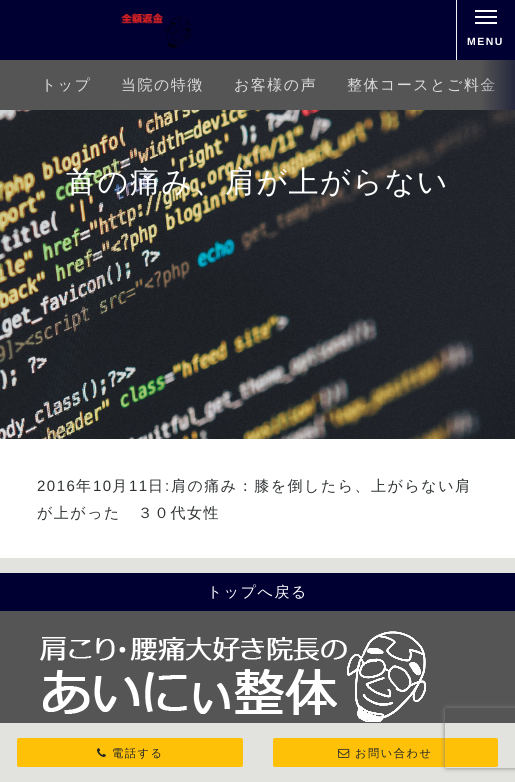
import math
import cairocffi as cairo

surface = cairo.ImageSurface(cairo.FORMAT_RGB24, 515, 782)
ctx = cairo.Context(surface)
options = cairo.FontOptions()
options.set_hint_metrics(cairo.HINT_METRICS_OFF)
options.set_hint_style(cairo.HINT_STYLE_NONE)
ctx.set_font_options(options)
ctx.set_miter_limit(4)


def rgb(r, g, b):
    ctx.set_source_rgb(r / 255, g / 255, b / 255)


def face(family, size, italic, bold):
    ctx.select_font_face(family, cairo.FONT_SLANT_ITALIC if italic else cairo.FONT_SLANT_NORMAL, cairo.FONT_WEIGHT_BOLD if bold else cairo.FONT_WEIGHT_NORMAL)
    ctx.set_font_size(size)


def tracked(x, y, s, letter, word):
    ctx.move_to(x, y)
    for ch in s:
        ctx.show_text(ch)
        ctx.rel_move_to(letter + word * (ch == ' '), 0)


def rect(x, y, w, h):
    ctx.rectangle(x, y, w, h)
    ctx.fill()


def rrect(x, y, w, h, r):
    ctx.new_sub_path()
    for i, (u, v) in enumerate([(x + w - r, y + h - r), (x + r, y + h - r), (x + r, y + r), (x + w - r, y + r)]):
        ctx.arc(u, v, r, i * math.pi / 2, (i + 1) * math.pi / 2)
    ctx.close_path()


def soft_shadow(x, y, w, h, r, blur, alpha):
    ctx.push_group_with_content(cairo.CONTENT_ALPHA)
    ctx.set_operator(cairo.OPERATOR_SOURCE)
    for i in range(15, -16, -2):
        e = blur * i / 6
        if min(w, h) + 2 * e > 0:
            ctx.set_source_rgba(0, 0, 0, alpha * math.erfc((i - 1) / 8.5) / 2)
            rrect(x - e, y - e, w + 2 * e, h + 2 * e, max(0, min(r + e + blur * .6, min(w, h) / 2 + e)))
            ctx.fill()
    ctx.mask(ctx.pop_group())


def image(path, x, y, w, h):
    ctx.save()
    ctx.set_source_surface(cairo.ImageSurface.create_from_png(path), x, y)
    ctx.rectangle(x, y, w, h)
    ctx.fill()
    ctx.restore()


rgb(255, 255, 255)
ctx.paint()
rgb(0, 0, 51)
rect(0, 0, 515, 60)
image('image0.png', 121, 13, 71, 35)
rgb(242, 242, 242)
rect(456, 0, 1, 60)
rgb(255, 255, 255)
rect(475, 16, 22, 2)
rect(475, 10, 22, 2)
rect(475, 22, 22, 2)
face('Liberation Sans', 10.5, 0, 1)
tracked(467, 45, 'MENU', 1.5, 0)
rgb(85, 85, 85)
rect(0, 60, 515, 50)
face('WenQuanYi Zen Hei Medium', 15, 0, 0)
rgb(221, 221, 221)
tracked(41, 90, 'トップ', 1.5, 0)
tracked(121, 90, '当院の特徴', 1.5, 0)
tracked(234, 90, 'お客様の声', 1.5, 0)
tracked(347, 90, '整体コースとご料金', 1.5, 0)
gradient = cairo.LinearGradient(515, 85, 480, 85)
gradient.add_color_stop_rgba(0, 0.145, 0.157, 0.239, 1)
gradient.add_color_stop_rgba(1, 0.145, 0.157, 0.239, 0)
ctx.set_source(gradient)
rect(481, 60, 34, 50)
image('image1.png', 0, 110, 515, 329)
face('WenQuanYi Zen Hei Medium', 30, 0, 0)
rgb(255, 255, 255)
tracked(66, 192, '首の痛み、肩が上がらない', 1.5, 0)
rgb(226, 227, 223)
rect(0, 558, 515, 15)
face('Liberation Sans', 15, 0, 0)
rgb(46, 50, 51)
tracked(37, 491, '2016', 1.5, 0)
face('WenQuanYi Zen Hei Medium', 15, 0, 0)
tracked(76, 491, '年', 1.5, 0)
face('Liberation Sans', 15, 0, 0)
tracked(93, 491, '10', 1.5, 0)
face('WenQuanYi Zen Hei Medium', 15, 0, 0)
tracked(112, 491, '月', 1.5, 0)
face('Liberation Sans', 15, 0, 0)
tracked(129, 491, '11', 1.5, 0)
face('WenQuanYi Zen Hei Medium', 15, 0, 0)
tracked(148, 491, '日', 1.5, 0)
face('Liberation Sans', 15, 0, 0)
tracked(165, 491, ':', 1.5, 0)
face('WenQuanYi Zen Hei Medium', 15, 0, 0)
tracked(171, 491, '肩の痛み：膝を倒したら、上がらない肩', 1.5, 0)
tracked(37, 518, 'が上がった　３０代女性', 1.5, 0)
rgb(0, 0, 51)
rect(0, 573, 515, 38)
rgb(255, 255, 255)
tracked(207, 597, 'トップへ戻る', 1.5, 0)
rgb(85, 85, 85)
rect(0, 611, 515, 112)
image('image2.png', 40, 628, 386, 94)
rgb(226, 227, 223)
rect(0, 723, 515, 59)
rgb(255, 193, 7)
rrect(17.5, 738.5, 225, 28, 1.5)
ctx.fill_preserve()
ctx.set_line_width(1)
ctx.stroke()
image('image3.png', 97, 748, 9, 9)
face('WenQuanYi Zen Hei Medium', 11.25, 0, 0)
rgb(33, 37, 41)
tracked(112, 757, '電話する', 1.5, 0)
rgb(255, 193, 7)
rrect(273.5, 738.5, 224, 28, 1.5)
ctx.fill_preserve()
ctx.stroke()
image('image4.png', 338, 748, 12, 10)
rgb(33, 37, 41)
tracked(355, 757, 'お問い合わせ', 1.5, 0)
ctx.save()
ctx.set_fill_rule(cairo.FILL_RULE_EVEN_ODD)
ctx.new_path()
ctx.move_to(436, 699)
ctx.line_to(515, 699)
ctx.line_to(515, 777)
ctx.line_to(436, 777)
ctx.close_path()
ctx.move_to(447, 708)
ctx.line_to(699, 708)
ctx.curve_to(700, 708, 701, 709, 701, 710)
ctx.line_to(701, 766)
ctx.curve_to(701, 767, 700, 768, 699, 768)
ctx.line_to(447, 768)
ctx.curve_to(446, 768, 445, 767, 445, 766)
ctx.line_to(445, 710)
ctx.curve_to(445, 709, 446, 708, 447, 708)
ctx.close_path()
ctx.clip()
rgb(128, 128, 128)
soft_shadow(445, 708, 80, 60, 2, 2.5, 1)
ctx.restore()
surface.write_to_png('render.png')
